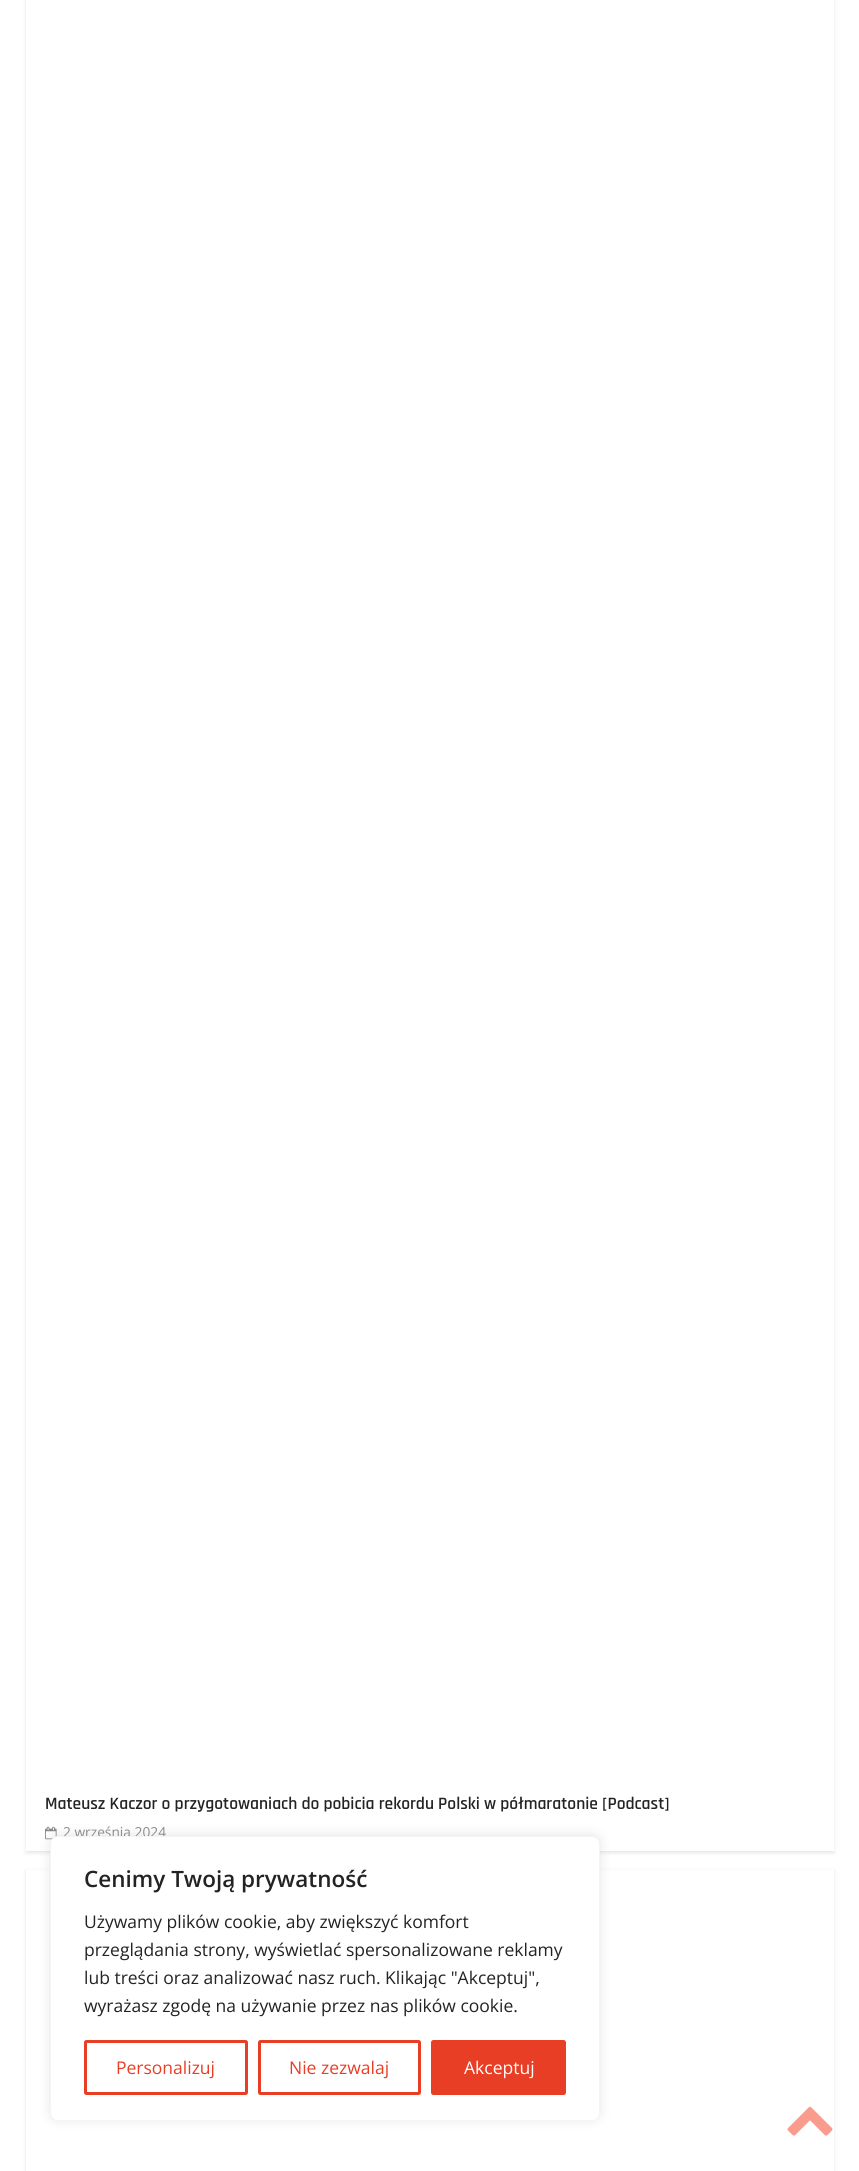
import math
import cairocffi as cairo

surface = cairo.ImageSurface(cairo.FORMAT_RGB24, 859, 2171)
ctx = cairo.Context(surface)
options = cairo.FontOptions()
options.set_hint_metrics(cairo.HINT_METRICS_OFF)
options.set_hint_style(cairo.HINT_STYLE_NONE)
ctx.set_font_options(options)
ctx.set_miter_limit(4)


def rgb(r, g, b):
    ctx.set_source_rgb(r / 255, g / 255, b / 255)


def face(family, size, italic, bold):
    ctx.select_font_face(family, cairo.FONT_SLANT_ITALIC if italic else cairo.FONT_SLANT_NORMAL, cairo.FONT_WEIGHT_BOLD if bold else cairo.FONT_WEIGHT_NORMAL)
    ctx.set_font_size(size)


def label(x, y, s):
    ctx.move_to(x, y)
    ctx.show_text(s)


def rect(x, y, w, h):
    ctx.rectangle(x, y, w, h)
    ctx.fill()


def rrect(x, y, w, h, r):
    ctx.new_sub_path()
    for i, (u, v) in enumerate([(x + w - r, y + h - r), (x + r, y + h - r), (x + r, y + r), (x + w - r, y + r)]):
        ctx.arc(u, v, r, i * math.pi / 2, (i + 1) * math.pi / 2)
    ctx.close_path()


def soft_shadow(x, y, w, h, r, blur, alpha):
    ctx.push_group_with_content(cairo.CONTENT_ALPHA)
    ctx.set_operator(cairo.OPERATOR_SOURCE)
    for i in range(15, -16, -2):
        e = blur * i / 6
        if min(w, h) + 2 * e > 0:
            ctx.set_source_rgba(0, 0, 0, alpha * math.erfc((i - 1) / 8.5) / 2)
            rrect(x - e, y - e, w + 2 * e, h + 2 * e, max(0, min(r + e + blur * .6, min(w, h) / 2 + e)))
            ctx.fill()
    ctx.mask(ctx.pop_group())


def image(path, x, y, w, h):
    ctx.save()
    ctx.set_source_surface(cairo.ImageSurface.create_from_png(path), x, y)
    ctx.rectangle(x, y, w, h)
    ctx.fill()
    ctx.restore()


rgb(255, 255, 255)
ctx.paint()
rgb(0, 0, 0)
soft_shadow(26, -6, 808, 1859, 0, 2, 0.1)
rgb(255, 255, 255)
rect(26, 0, 808, 1851)
face('Rajdhani SemiBold', 17.5, 0, 0)
rgb(35, 35, 35)
label(45, 1809, 'Mateusz Kaczor o przygotowaniach do pobicia rekordu Polski w półmaratonie [Podcast]')
image('image0.png', 45, 1826, 12, 14)
face('Open Sans', 13.75, 0, 0)
rgb(136, 136, 136)
label(63, 1837, '2 września 2024')
rgb(0, 0, 0)
soft_shadow(26, 1871, 808, 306, 0, 2, 0.1)
rgb(255, 255, 255)
rect(26, 1870, 808, 301)
image('image1.png', 787, 2106, 46, 30)
rgb(172, 171, 171)
soft_shadow(50, 1835, 550, 285, 8, 6, 0.3)
rgb(255, 255, 255)
rrect(50.5, 1836.5, 549, 284, 7.5)
ctx.fill_preserve()
rgb(244, 244, 244)
ctx.set_line_width(1)
ctx.stroke()
face('Open Sans SemiBold', 22.5, 0, 0)
rgb(35, 35, 35)
label(84, 1887, 'Cenimy Twoją prywatność')
face('Open Sans', 17.5, 0, 0)
label(84, 1928, 'Używamy plików cookie, aby zwiększyć komfort')
label(84, 1956, 'przeglądania strony, wyświetlać spersonalizowane reklamy')
label(84, 1984, 'lub treści oraz analizować nasz ruch. Klikając "Akceptuj",')
label(84, 2012, 'wyrażasz zgodę na używanie przez nas plików cookie.')
rrect(85.5, 2041.5, 161, 52, 1)
rgb(231, 62, 37)
ctx.set_line_width(3)
ctx.stroke()
label(116, 2074, 'Personalizuj')
rrect(259.5, 2041.5, 160, 52, 1)
ctx.stroke()
label(289, 2074, 'Nie zezwalaj')
rrect(432.5, 2041.5, 132, 52, 1)
ctx.fill_preserve()
ctx.stroke()
rgb(255, 255, 255)
label(464, 2074, 'Akceptuj')
surface.write_to_png('render.png')
